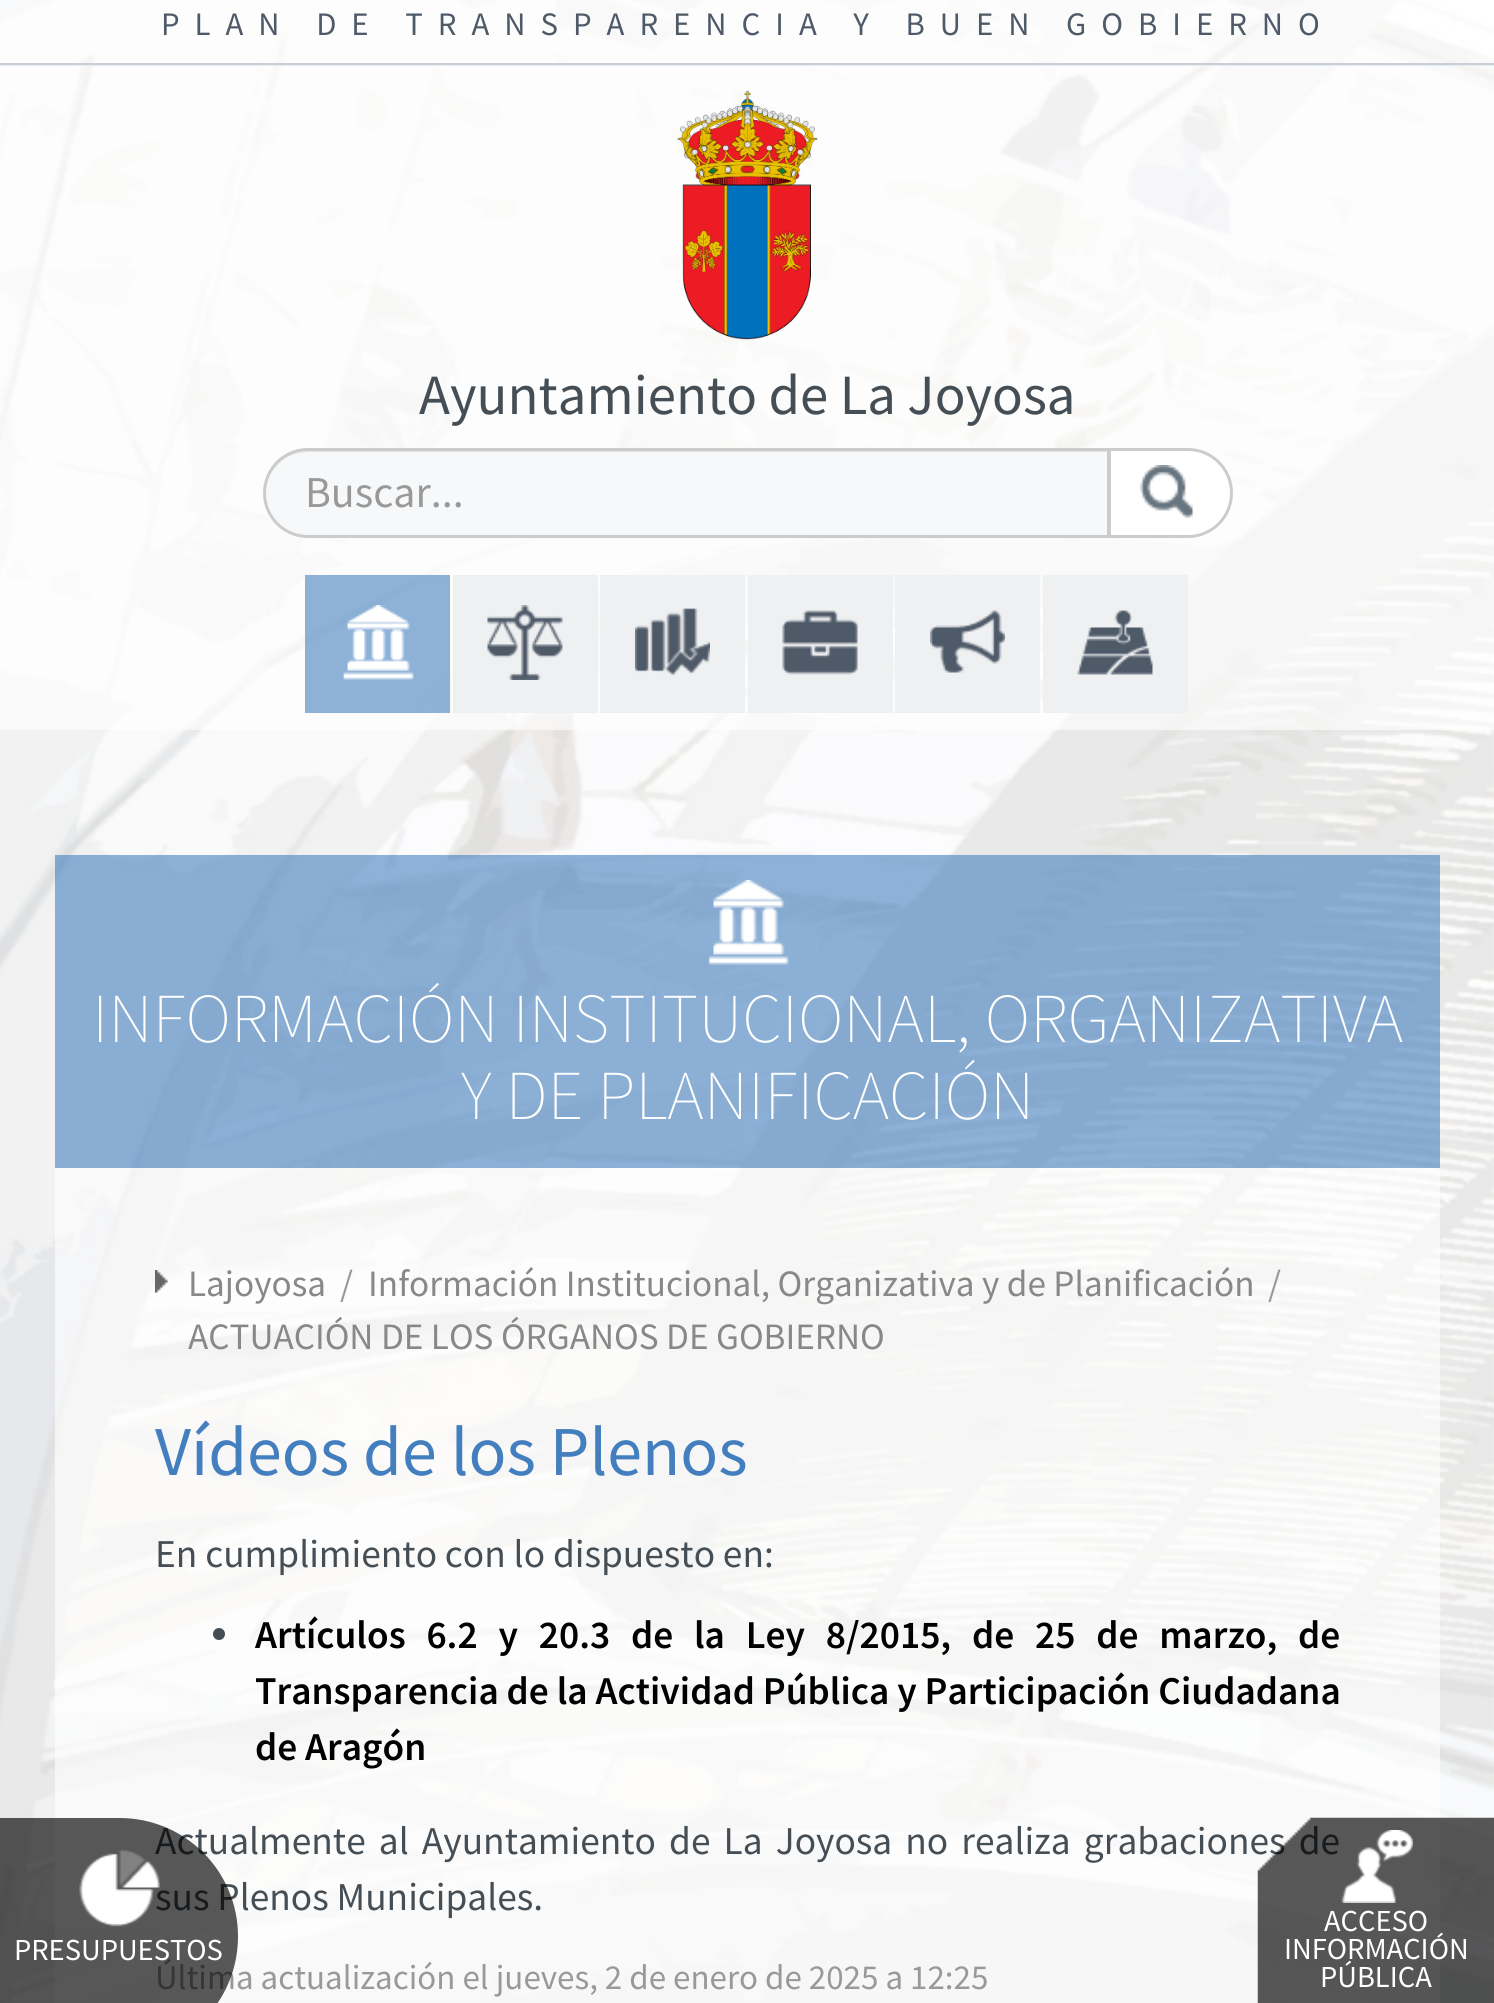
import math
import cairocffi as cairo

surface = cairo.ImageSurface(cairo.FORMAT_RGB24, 1494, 2003)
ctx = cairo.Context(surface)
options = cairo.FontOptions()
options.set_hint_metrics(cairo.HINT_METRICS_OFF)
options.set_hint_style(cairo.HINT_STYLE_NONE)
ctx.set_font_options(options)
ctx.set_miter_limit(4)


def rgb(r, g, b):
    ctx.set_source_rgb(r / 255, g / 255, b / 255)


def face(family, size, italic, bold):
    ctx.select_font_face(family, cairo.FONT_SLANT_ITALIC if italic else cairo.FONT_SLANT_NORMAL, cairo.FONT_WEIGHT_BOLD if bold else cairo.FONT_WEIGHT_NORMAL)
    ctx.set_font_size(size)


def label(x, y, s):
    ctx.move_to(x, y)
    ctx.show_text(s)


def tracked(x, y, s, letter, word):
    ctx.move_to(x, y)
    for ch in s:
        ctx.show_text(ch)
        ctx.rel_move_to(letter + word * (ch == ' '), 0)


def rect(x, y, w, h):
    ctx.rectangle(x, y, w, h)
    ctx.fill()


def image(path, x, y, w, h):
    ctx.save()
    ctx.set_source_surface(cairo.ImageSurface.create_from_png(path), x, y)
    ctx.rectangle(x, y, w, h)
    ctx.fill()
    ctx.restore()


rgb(255, 255, 255)
ctx.paint()
image('image0.png', 0, 0, 1494, 2003)
ctx.set_source_rgba(1, 1, 1, 0.6)
rect(0, 0, 1494, 63)
rgb(201, 207, 214)
rect(0, 63, 1494, 3)
face('Source Sans Pro', 32.8, 0, 0)
rgb(79, 90, 105)
tracked(161, 35, 'PLAN DE TRANSPARENCIA Y BUEN GOBIERNO', 15, 0)
ctx.set_source_rgba(1, 1, 1, 0.6)
rect(0, 65, 1494, 510)
image('image1.png', 677, 90, 141, 250)
face('Source Sans Pro', 56.9, 0, 0)
rgb(70, 78, 85)
label(419, 414, 'Ayuntamiento de La Joyosa')
rgb(246, 248, 249)
ctx.new_path()
ctx.move_to(308, 448)
ctx.line_to(1110, 448)
ctx.line_to(1110, 538)
ctx.line_to(308, 538)
ctx.curve_to(283, 538, 263, 518, 263, 493)
ctx.curve_to(263, 468, 283, 448, 308, 448)
ctx.close_path()
ctx.fill()
rgb(228, 229, 230)
ctx.new_path()
ctx.move_to(308, 452)
ctx.line_to(1108, 452)
ctx.line_to(1108, 450)
ctx.line_to(308, 450)
ctx.curve_to(284, 450, 264, 470, 265, 494)
ctx.curve_to(266, 471, 284, 452, 308, 452)
ctx.close_path()
ctx.fill()
ctx.new_path()
ctx.move_to(308, 449.5)
ctx.line_to(1108.5, 449.5)
ctx.line_to(1108.5, 536.5)
ctx.line_to(308, 536.5)
ctx.curve_to(284, 536.5, 264.5, 517, 264.5, 493)
ctx.curve_to(264.5, 469, 284, 449.5, 308, 449.5)
ctx.close_path()
rgb(204, 204, 204)
ctx.set_line_width(3)
ctx.stroke()
face('Source Sans Pro', 44, 0, 0)
rgb(153, 153, 153)
label(305, 507, 'Buscar...')
rgb(255, 255, 255)
ctx.new_path()
ctx.move_to(1109.5, 449.5)
ctx.line_to(1188, 449.5)
ctx.curve_to(1212, 449.5, 1231.5, 469, 1231.5, 493)
ctx.curve_to(1231.5, 517, 1212, 536.5, 1188, 536.5)
ctx.line_to(1109.5, 536.5)
ctx.close_path()
ctx.fill_preserve()
rgb(204, 204, 204)
ctx.stroke()
image('image2.png', 1140, 465, 53, 53)
ctx.set_source_rgba(1, 1, 1, 0.6)
rect(0, 575, 1494, 155)
ctx.set_source_rgba(0.263, 0.498, 0.745, 0.6)
rect(305, 575, 145, 138)
image('image3.png', 343, 605, 71, 75)
rgb(239, 240, 241)
rect(453, 575, 145, 138)
image('image4.png', 487, 605, 76, 75)
rect(600, 575, 145, 138)
image('image5.png', 635, 608, 75, 67)
rect(748, 575, 145, 138)
image('image6.png', 782, 610, 76, 65)
rect(895, 575, 145, 138)
image('image7.png', 930, 610, 75, 63)
rect(1043, 575, 145, 138)
image('image8.png', 1077, 610, 76, 65)
ctx.set_source_rgba(0.263, 0.498, 0.745, 0.6)
rect(55, 855, 1385, 313)
image('image9.png', 708, 880, 81, 85)
face('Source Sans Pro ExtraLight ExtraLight', 70, 0, 0)
rgb(255, 255, 255)
label(92, 1042, 'INFORMACIÓN INSTITUCIONAL, ORGANIZATIVA')
label(461, 1119, 'Y DE PLANIFICACIÓN')
ctx.set_source_rgba(1, 1, 1, 0.6)
rect(55, 1168, 1385, 835)
image('image10.png', 155, 1270, 13, 23)
face('Source Sans Pro', 37.2, 0, 0)
rgb(136, 136, 136)
label(188, 1296, 'Lajoyosa')
rgb(153, 153, 153)
label(340, 1296, '/')
rgb(136, 136, 136)
label(368, 1296, 'Información Institucional, Organizativa y de Planificación')
rgb(153, 153, 153)
label(1268, 1296, '/')
rgb(136, 136, 136)
label(188, 1349, 'ACTUACIÓN DE LOS ÓRGANOS DE GOBIERNO')
face('Source Sans Pro', 70, 0, 0)
rgb(67, 127, 190)
label(155, 1475, 'Vídeos de los Plenos')
face('Source Sans Pro', 39.4, 0, 0)
rgb(70, 78, 85)
label(155, 1567, 'En cumplimiento con lo dispuesto en:')
ctx.new_path()
ctx.arc(219, 1634, 6, 0, 2 * math.pi)
ctx.fill()
face('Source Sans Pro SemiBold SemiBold', 39.4, 0, 0)
rgb(0, 0, 0)
tracked(255, 1648, 'Artículos 6.2 y 20.3 de la Ley 8/2015, de 25 de marzo, de', 0, 12.9)
label(255, 1704, 'Transparencia de la Actividad Pública y Participación Ciudadana')
label(255, 1760, 'de Aragón')
face('Source Sans Pro', 39.4, 0, 0)
rgb(70, 78, 85)
tracked(155, 1854, 'Actualmente al Ayuntamiento de La Joyosa no realiza grabaciones de', 0, 5.25)
label(155, 1910, 'sus Plenos Municipales.')
face('Source Sans Pro', 35, 0, 0)
rgb(153, 153, 153)
label(155, 1989, 'Última actualización el jueves, 2 de enero de 2025 a 12:25')
ctx.set_source_rgba(0, 0, 0, 0.65)
ctx.new_path()
ctx.move_to(0, 1818)
ctx.line_to(119.5, 1818)
ctx.curve_to(185, 1818, 238, 1871, 238, 1936.5)
ctx.curve_to(238, 2002, 185, 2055, 119.5, 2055)
ctx.line_to(0, 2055)
ctx.close_path()
ctx.fill()
image('image11.png', 79, 1849, 81, 78)
face('Source Sans Pro', 30.5, 0, 0)
rgb(255, 255, 255)
label(14, 1960, 'PRESUPUESTOS')
image('image12.png', 1257, 1817, 237, 186)
image('image13.png', 1341, 1830, 72, 73)
label(1324, 1931, 'ACCESO')
label(1284, 1959, 'INFORMACIÓN')
label(1320, 1987, 'PÚBLICA')
surface.write_to_png('render.png')
